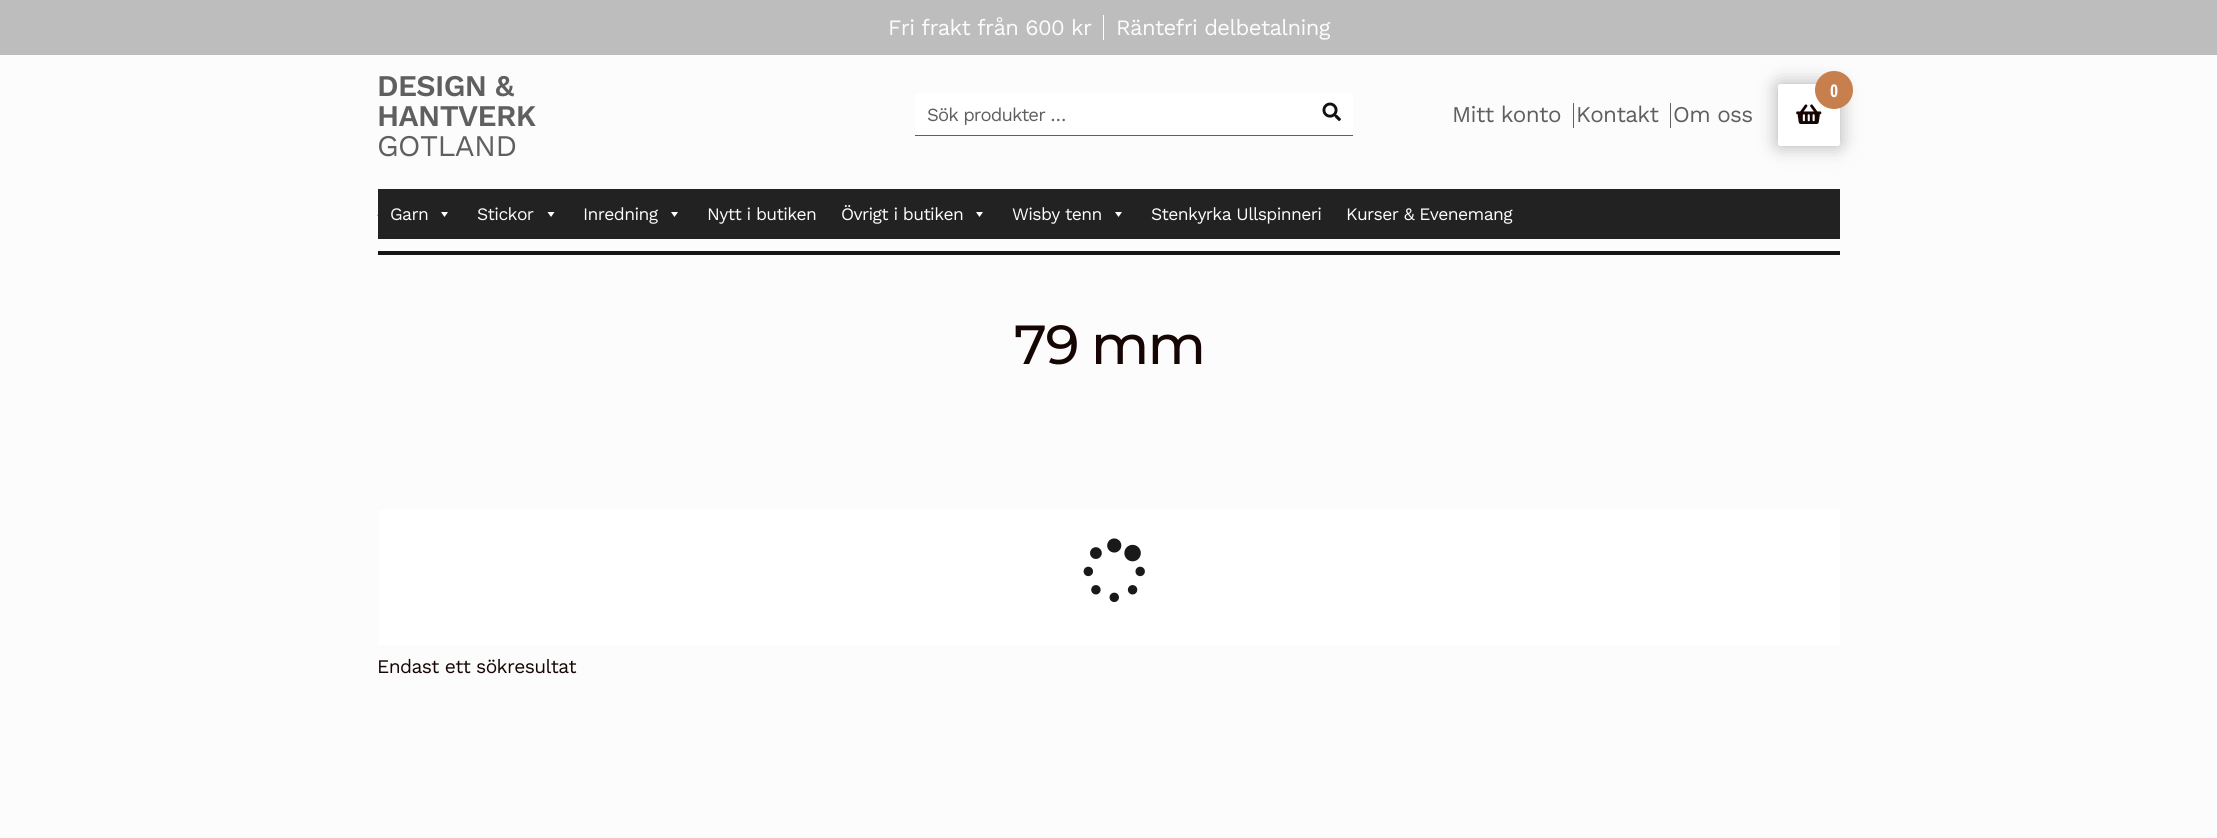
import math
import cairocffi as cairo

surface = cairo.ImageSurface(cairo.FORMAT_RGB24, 2217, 838)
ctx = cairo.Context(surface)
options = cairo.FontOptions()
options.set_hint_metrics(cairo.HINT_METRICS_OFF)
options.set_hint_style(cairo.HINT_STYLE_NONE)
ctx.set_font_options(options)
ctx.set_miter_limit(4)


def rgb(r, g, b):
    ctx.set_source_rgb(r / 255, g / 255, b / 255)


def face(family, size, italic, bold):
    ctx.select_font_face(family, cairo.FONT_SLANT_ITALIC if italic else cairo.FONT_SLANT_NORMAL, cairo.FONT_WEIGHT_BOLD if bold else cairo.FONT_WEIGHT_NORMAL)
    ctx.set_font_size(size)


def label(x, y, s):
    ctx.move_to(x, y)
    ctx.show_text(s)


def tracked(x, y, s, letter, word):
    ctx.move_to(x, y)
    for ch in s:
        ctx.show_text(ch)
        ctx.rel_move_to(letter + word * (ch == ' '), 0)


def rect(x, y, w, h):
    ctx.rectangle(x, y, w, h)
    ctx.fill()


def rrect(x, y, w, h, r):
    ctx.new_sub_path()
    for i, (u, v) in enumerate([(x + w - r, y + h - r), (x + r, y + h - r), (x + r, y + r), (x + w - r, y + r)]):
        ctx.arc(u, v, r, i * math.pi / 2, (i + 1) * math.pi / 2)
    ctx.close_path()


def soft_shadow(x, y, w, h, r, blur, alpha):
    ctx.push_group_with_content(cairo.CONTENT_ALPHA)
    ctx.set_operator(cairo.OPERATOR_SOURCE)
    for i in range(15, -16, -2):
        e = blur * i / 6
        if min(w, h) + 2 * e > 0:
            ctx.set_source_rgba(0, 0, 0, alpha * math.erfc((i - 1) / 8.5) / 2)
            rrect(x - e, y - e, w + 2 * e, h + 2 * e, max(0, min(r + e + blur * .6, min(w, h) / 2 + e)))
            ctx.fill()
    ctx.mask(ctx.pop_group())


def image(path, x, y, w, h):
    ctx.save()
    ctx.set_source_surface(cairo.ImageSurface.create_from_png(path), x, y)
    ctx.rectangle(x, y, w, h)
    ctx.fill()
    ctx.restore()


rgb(252, 252, 252)
ctx.paint()
rgb(189, 189, 189)
rect(0, 0, 2217, 55)
face('Work Sans', 22, 0, 0)
rgb(252, 252, 252)
tracked(888, 35, 'Fri frakt från 600 kr', -0.6, 0)
rgb(255, 255, 255)
rect(1103, 15, 1, 25)
rgb(252, 252, 252)
tracked(1116, 35, 'Räntefri delbetalning', -0.6, 0)
face('Work Sans SemiBold', 30, 0, 0)
rgb(95, 95, 95)
tracked(377, 96, 'DESIGN &', -0.6, 0)
tracked(377, 126, 'HANTVERK', -0.6, 0)
face('Work Sans', 30, 0, 0)
tracked(377, 156, 'GOTLAND', -0.6, 0)
rgb(95, 95, 95)
soft_shadow(1778, 84, 62, 62, 2.5, 9.5, 0.5)
rgb(255, 255, 255)
rrect(1778, 84, 62, 62, 2.5)
ctx.fill()
rgb(199, 128, 77)
ctx.arc(1834, 90, 19, 0, 2 * math.pi)
ctx.fill()
face('Open Sans Condensed', 17.5, 0, 1)
rgb(252, 252, 252)
label(1830, 97, '0')
image('image0.png', 1796, 104, 26, 20)
rgb(255, 255, 255)
rect(915, 94, 438, 41)
rgb(95, 95, 95)
rect(915, 135, 438, 1)
face('Work Sans', 18.5, 0, 0)
tracked(927, 121, 'Sök produkter …', -0.9, 0)
image('image1.png', 1322, 102, 19, 19)
face('Work Sans', 22.5, 0, 0)
tracked(1452, 122, 'Mitt konto', -0.6, 0)
rect(1573, 103, 1, 25)
tracked(1576, 122, 'Kontakt', -0.6, 0)
rect(1670, 103, 1, 25)
tracked(1673, 122, 'Om oss', -0.6, 0)
rgb(34, 34, 34)
rect(378, 189, 1462, 50)
face('Work Sans', 17.5, 0, 0)
rgb(252, 252, 252)
tracked(390, 220, 'Garn', -0.6, 0)
rgb(255, 255, 255)
ctx.new_path()
ctx.move_to(448, 212)
ctx.line_to(444.5, 217)
ctx.line_to(441, 212)
ctx.close_path()
ctx.fill()
rgb(252, 252, 252)
tracked(477, 220, 'Stickor', -0.6, 0)
rgb(255, 255, 255)
ctx.new_path()
ctx.move_to(554.5, 212)
ctx.line_to(551, 217)
ctx.line_to(547.5, 212)
ctx.close_path()
ctx.fill()
rgb(252, 252, 252)
tracked(583, 220, 'Inredning', -0.6, 0)
rgb(255, 255, 255)
ctx.new_path()
ctx.move_to(678, 212)
ctx.line_to(674.5, 217)
ctx.line_to(671, 212)
ctx.close_path()
ctx.fill()
rgb(252, 252, 252)
tracked(707, 220, 'Nytt i butiken', -0.6, 0)
tracked(841, 220, 'Övrigt i butiken', -0.6, 0)
rgb(255, 255, 255)
ctx.new_path()
ctx.move_to(983, 212)
ctx.line_to(979.5, 217)
ctx.line_to(976, 212)
ctx.close_path()
ctx.fill()
rgb(252, 252, 252)
tracked(1012, 220, 'Wisby tenn', -0.6, 0)
rgb(255, 255, 255)
ctx.new_path()
ctx.move_to(1122, 212)
ctx.line_to(1118.5, 217)
ctx.line_to(1115, 212)
ctx.close_path()
ctx.fill()
rgb(252, 252, 252)
tracked(1151, 220, 'Stenkyrka Ullspinneri', -0.6, 0)
tracked(1346, 220, 'Kurser & Evenemang', -0.6, 0)
rgb(21, 21, 21)
rect(378, 251, 1462, 4)
image('image2.png', 377, 214, 1, 2)
face('Montserrat Alternates Medium', 55, 0, 0)
rgb(21, 6, 4)
tracked(1014, 364, '79 mm', -1.5, 0)
rgb(255, 255, 255)
rect(378, 510, 1462, 135)
image('image3.png', 1083, 538, 62, 65)
face('Work Sans', 19.25, 0, 0)
rgb(21, 6, 4)
tracked(377, 673, 'Endast ett sökresultat', -0.6, 0)
surface.write_to_png('render.png')
